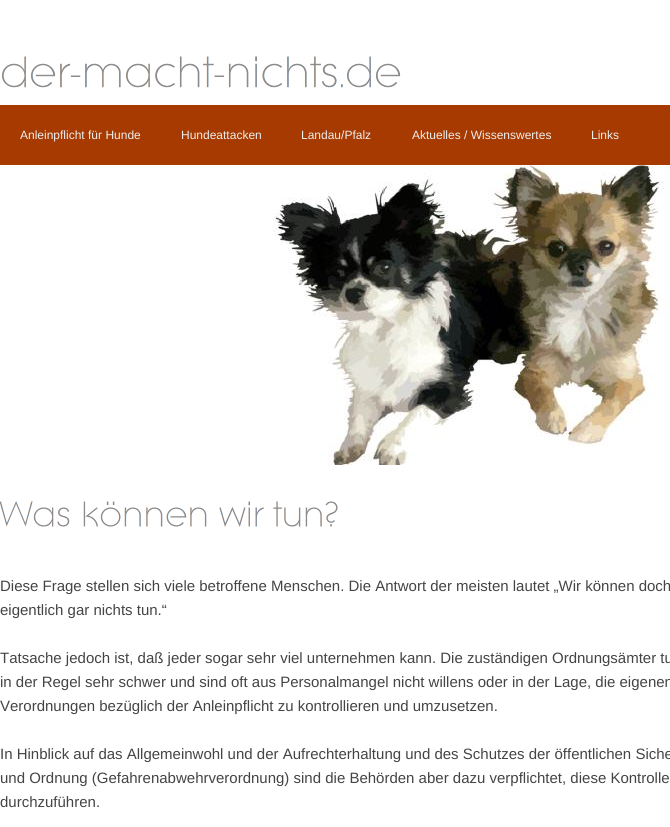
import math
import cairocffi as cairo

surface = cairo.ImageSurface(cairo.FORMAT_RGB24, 670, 827)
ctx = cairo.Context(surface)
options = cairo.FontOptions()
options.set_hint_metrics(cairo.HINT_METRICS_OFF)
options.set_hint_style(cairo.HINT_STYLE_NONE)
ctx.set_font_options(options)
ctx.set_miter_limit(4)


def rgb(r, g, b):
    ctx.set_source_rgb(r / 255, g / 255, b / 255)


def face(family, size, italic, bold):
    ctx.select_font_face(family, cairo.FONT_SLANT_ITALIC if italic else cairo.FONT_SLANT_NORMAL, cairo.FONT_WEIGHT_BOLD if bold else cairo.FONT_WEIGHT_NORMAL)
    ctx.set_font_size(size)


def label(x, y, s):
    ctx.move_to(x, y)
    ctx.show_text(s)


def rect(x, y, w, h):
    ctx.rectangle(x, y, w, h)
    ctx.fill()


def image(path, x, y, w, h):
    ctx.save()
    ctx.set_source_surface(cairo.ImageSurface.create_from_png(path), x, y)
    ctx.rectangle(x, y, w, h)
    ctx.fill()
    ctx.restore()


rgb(255, 255, 255)
ctx.paint()
image('image0.png', 1, 56, 400, 32)
rgb(166, 58, 0)
rect(0, 105, 670, 60)
face('Liberation Sans', 12, 0, 0)
rgb(238, 238, 238)
label(20, 139, 'Anleinpflicht für Hunde')
label(181, 139, 'Hundeattacken')
label(301, 139, 'Landau/Pfalz')
label(412, 139, 'Aktuelles / Wissenswertes')
label(591, 139, 'Links')
image('image1.png', 0, 165, 670, 300)
image('image2.png', 0, 501, 338, 26)
face('Liberation Sans', 15, 0, 0)
rgb(68, 68, 68)
label(0, 591, 'Diese Frage stellen sich viele betroffene Menschen. Die Antwort der meisten lautet „Wir können doch')
label(0, 615, 'eigentlich gar nichts tun.“')
label(0, 663, 'Tatsache jedoch ist, daß jeder sogar sehr viel unternehmen kann. Die zuständigen Ordnungsämter tu')
label(0, 687, 'in der Regel sehr schwer und sind oft aus Personalmangel nicht willens oder in der Lage, die eigenen')
label(0, 711, 'Verordnungen bezüglich der Anleinpflicht zu kontrollieren und umzusetzen.')
label(0, 759, 'In Hinblick auf das Allgemeinwohl und der Aufrechterhaltung und des Schutzes der öffentlichen Siche')
label(0, 783, 'und Ordnung (Gefahrenabwehrverordnung) sind die Behörden aber dazu verpflichtet, diese Kontrolle')
label(0, 807, 'durchzuführen.')
surface.write_to_png('render.png')
